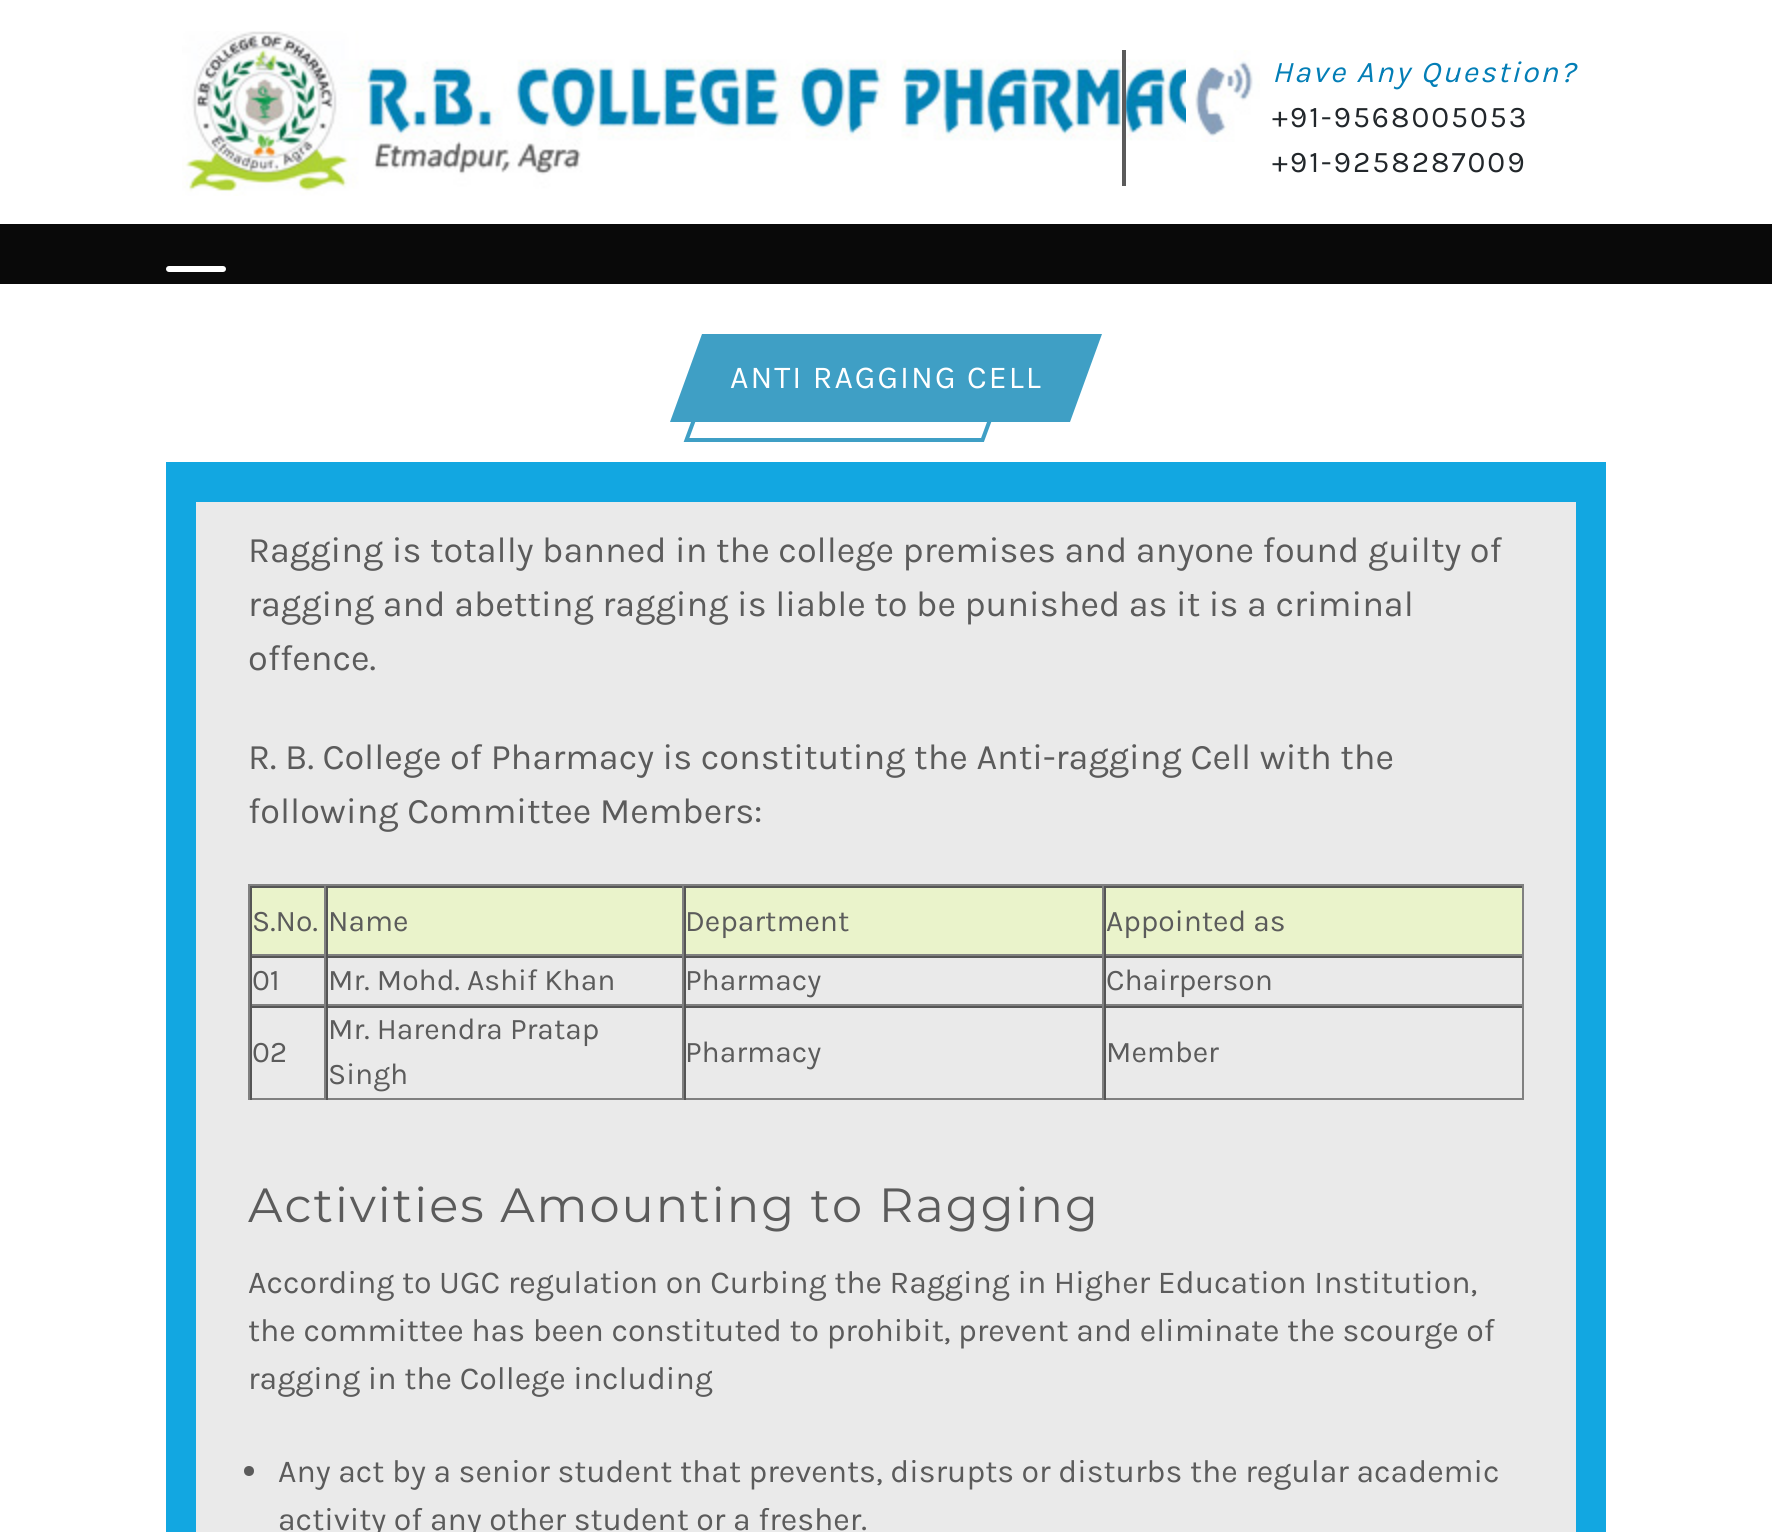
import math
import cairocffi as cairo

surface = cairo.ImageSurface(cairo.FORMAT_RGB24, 1772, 1532)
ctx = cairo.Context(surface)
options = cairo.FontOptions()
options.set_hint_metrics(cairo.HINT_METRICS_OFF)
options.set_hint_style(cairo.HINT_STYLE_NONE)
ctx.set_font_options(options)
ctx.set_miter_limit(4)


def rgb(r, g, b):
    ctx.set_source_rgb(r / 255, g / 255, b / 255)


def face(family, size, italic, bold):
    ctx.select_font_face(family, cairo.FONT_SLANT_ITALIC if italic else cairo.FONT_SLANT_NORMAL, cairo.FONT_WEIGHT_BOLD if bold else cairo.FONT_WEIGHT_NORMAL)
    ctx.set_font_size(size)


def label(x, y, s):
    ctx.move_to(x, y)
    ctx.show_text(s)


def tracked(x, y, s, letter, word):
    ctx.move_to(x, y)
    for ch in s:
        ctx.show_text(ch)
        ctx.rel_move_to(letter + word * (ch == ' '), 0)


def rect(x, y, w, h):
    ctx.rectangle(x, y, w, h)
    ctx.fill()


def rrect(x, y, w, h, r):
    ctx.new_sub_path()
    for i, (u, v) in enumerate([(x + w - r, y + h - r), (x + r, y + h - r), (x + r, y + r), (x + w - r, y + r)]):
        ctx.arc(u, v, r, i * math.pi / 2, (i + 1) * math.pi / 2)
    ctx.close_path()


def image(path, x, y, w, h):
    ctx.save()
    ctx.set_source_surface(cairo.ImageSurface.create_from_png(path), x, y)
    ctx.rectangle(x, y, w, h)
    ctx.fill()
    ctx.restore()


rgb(255, 255, 255)
ctx.paint()
image('image0.png', 182, 31, 1068, 165)
rgb(91, 91, 91)
rect(1122, 50, 4, 136)
image('image1.png', 1186, 50, 74, 92)
face('Karla', 30, 1, 0)
rgb(3, 126, 182)
tracked(1272, 82, 'Have Any Question?', 2, 0)
face('Karla', 30, 0, 0)
rgb(34, 39, 43)
tracked(1272, 127, '+91-9568005053', 2, 0)
tracked(1272, 172, '+91-9258287009', 2, 0)
rgb(9, 9, 9)
rect(0, 224, 1772, 60)
rgb(255, 255, 255)
rrect(166, 266, 60, 6, 3)
ctx.fill()
ctx.new_path()
ctx.move_to(717.5, 356)
ctx.line_to(1013.5, 356)
ctx.line_to(982.5, 440)
ctx.line_to(686.5, 440)
ctx.close_path()
rgb(63, 159, 197)
ctx.set_line_width(4)
ctx.stroke()
ctx.new_path()
ctx.move_to(702, 334)
ctx.line_to(1102, 334)
ctx.line_to(1070, 422)
ctx.line_to(670, 422)
ctx.close_path()
ctx.fill()
face('Karla', 32, 0, 0)
rgb(255, 255, 255)
tracked(730, 388, 'ANTI RAGGING CELL', 2, 0)
rgb(18, 167, 225)
rect(166, 462, 1440, 1070)
rgb(234, 234, 234)
rect(196, 502, 1380, 1030)
face('Karla', 36, 0, 0)
rgb(91, 91, 91)
label(248, 562, 'Ragging is totally banned in the college premises and anyone found guilty of')
label(248, 616, 'ragging and abetting ragging is liable to be punished as it is a criminal')
label(248, 670, 'offence.')
label(248, 769, 'R. B. College of Pharmacy is constituting the Anti-ragging Cell with the')
label(248, 823, 'following Committee Members:')
rgb(128, 128, 128)
rect(248, 884, 1276, 2)
rect(248, 884, 2, 216)
rgb(234, 243, 203)
rect(252, 888, 72, 66)
rgb(85, 85, 85)
rect(250, 886, 1274, 2)
rgb(128, 128, 128)
rect(324, 886, 2, 70)
rect(250, 954, 76, 2)
rgb(85, 85, 85)
rect(250, 886, 2, 70)
face('Karla', 30, 0, 0)
rgb(91, 91, 91)
label(252, 931, 'S.No.')
rgb(234, 243, 203)
rect(328, 888, 354, 66)
rgb(128, 128, 128)
rect(682, 886, 2, 70)
rect(326, 954, 358, 2)
rgb(85, 85, 85)
rect(326, 886, 2, 70)
rgb(91, 91, 91)
label(328, 931, 'Name')
rgb(234, 243, 203)
rect(686, 888, 416, 66)
rgb(128, 128, 128)
rect(1102, 886, 2, 70)
rect(684, 954, 420, 2)
rgb(85, 85, 85)
rect(684, 886, 2, 70)
rgb(91, 91, 91)
label(685, 931, 'Department')
rgb(234, 243, 203)
rect(1106, 888, 416, 66)
rgb(128, 128, 128)
rect(1522, 886, 2, 70)
rect(1104, 954, 420, 2)
rgb(85, 85, 85)
rect(1104, 886, 2, 70)
rgb(91, 91, 91)
label(1106, 931, 'Appointed as')
rgb(85, 85, 85)
rect(250, 956, 1274, 2)
rgb(128, 128, 128)
rect(324, 956, 2, 50)
rect(250, 1004, 76, 2)
rgb(85, 85, 85)
rect(250, 956, 2, 50)
rgb(91, 91, 91)
label(252, 990, '01')
rgb(128, 128, 128)
rect(682, 956, 2, 50)
rect(326, 1004, 358, 2)
rgb(85, 85, 85)
rect(326, 956, 2, 50)
rgb(91, 91, 91)
label(328, 990, 'Mr. Mohd. Ashif Khan')
rgb(128, 128, 128)
rect(1102, 956, 2, 50)
rect(684, 1004, 420, 2)
rgb(85, 85, 85)
rect(684, 956, 2, 50)
rgb(91, 91, 91)
label(685, 990, 'Pharmacy')
rgb(128, 128, 128)
rect(1522, 956, 2, 50)
rect(1104, 1004, 420, 2)
rgb(85, 85, 85)
rect(1104, 956, 2, 50)
rgb(91, 91, 91)
label(1106, 990, 'Chairperson')
rgb(85, 85, 85)
rect(250, 1006, 1274, 2)
rgb(128, 128, 128)
rect(324, 1006, 2, 94)
rect(250, 1098, 76, 2)
rgb(85, 85, 85)
rect(250, 1006, 2, 94)
rgb(91, 91, 91)
label(252, 1062, '02')
rgb(128, 128, 128)
rect(682, 1006, 2, 94)
rect(326, 1098, 358, 2)
rgb(85, 85, 85)
rect(326, 1006, 2, 94)
rgb(91, 91, 91)
label(328, 1039, 'Mr. Harendra Pratap')
label(328, 1084, 'Singh')
rgb(128, 128, 128)
rect(1102, 1006, 2, 94)
rect(684, 1098, 420, 2)
rgb(85, 85, 85)
rect(684, 1006, 2, 94)
rgb(91, 91, 91)
label(685, 1062, 'Pharmacy')
rgb(128, 128, 128)
rect(1522, 1006, 2, 94)
rect(1104, 1098, 420, 2)
rgb(85, 85, 85)
rect(1104, 1006, 2, 94)
rgb(91, 91, 91)
label(1106, 1062, 'Member')
face('Montserrat', 48, 0, 0)
tracked(248, 1222, 'Activities Amounting to Ragging', 2, 0)
face('Karla', 32, 0, 0)
label(248, 1293, 'According to UGC regulation on Curbing the Ragging in Higher Education Institution,')
label(248, 1341, 'the committee has been constituted to prohibit, prevent and eliminate the scourge of')
label(248, 1389, 'ragging in the College including')
ctx.new_path()
ctx.arc(249, 1471, 5, 0, 2 * math.pi)
ctx.fill()
label(278, 1482, 'Any act by a senior student that prevents, disrupts or disturbs the regular academic')
label(278, 1530, 'activity of any other student or a fresher.')
surface.write_to_png('render.png')
